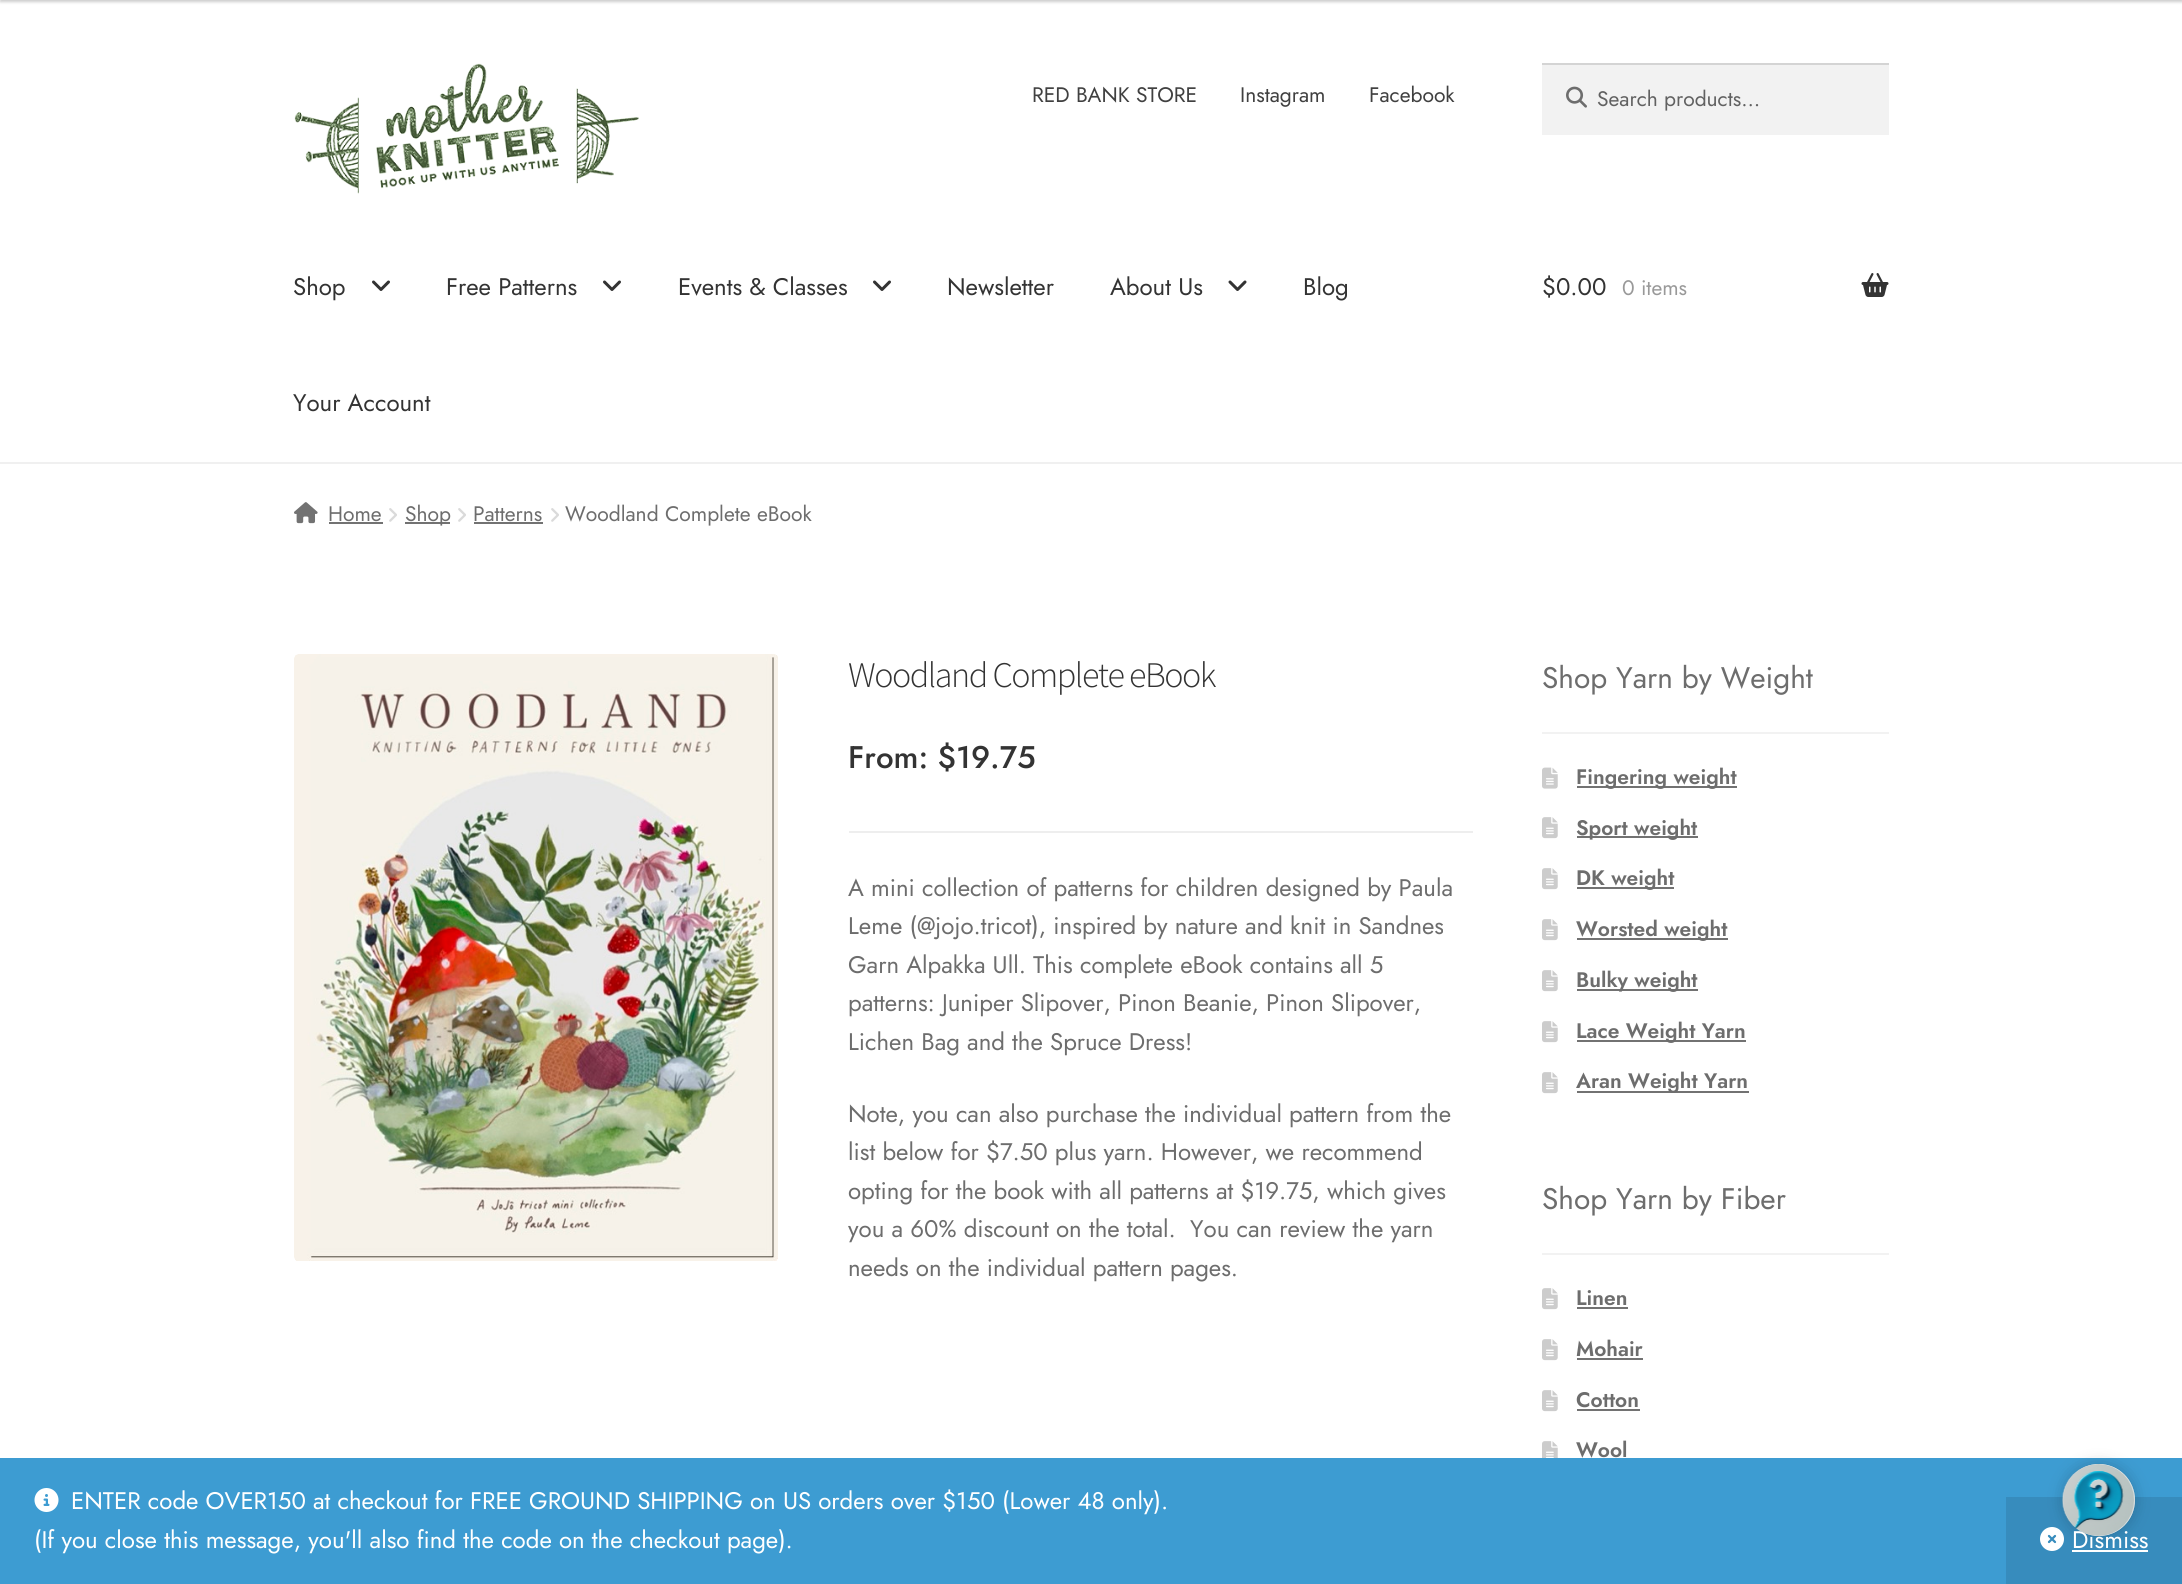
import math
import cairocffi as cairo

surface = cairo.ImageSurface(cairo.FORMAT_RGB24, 2182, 1584)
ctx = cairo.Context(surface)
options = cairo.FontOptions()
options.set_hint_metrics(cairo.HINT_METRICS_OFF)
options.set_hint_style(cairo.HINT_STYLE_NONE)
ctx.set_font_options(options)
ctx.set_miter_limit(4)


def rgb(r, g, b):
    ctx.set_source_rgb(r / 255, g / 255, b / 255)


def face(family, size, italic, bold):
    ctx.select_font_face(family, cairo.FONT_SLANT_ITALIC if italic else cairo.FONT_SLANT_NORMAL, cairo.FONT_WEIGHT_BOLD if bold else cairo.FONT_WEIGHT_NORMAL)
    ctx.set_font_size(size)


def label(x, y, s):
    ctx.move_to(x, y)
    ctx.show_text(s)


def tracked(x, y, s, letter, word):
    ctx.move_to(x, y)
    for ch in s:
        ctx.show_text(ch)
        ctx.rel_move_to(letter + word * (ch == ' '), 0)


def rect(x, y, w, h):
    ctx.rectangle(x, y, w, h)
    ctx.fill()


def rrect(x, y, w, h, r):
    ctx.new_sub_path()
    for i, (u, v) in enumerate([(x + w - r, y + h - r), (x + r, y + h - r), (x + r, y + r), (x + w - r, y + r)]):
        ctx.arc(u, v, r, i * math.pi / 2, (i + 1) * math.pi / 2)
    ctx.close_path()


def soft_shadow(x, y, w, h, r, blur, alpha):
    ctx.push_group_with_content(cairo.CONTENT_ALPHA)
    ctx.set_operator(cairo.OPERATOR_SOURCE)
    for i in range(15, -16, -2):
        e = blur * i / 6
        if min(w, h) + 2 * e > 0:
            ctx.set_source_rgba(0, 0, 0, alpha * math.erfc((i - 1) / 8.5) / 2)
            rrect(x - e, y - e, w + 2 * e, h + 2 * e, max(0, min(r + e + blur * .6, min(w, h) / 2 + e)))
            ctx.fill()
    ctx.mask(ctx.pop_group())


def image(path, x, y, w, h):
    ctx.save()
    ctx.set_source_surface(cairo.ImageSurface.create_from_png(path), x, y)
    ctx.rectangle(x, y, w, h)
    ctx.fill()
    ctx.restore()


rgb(255, 255, 255)
ctx.paint()
rgb(0, 0, 0)
soft_shadow(0, -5, 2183, 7, 0, 1.5, 0.2)
rgb(240, 240, 240)
rect(0, 462, 2182, 2)
image('image0.png', 294, 63, 345, 131)
face('Jost', 21, 0, 0)
rgb(64, 64, 64)
label(1032, 102, 'RED BANK STORE')
label(1240, 102, 'Instagram')
label(1369, 102, 'Facebook')
rgb(242, 242, 242)
rect(1542, 65, 347, 70)
image('image1.png', 1566, 86, 21, 22)
rgb(212, 212, 212)
rect(1542, 63, 347, 2)
rgb(97, 97, 97)
label(1597, 106, 'Search products…')
face('Jost', 24, 0, 0)
rgb(51, 51, 51)
label(293, 295, 'Shop')
image('image2.png', 372, 280, 18, 11)
label(446, 295, 'Free Patterns')
image('image2.png', 603, 280, 18, 11)
label(678, 295, 'Events & Classes')
image('image2.png', 873, 280, 18, 11)
label(947, 295, 'Newsletter')
label(1110, 295, 'About Us')
image('image3.png', 1228, 280, 19, 11)
label(1303, 295, 'Blog')
label(293, 411, 'Your Account')
label(1542, 295, '$0.00')
face('Jost', 21, 0, 0)
rgb(153, 153, 153)
label(1622, 295, '0 items')
image('image4.png', 1861, 273, 28, 24)
image('image5.png', 294, 502, 24, 22)
rgb(109, 109, 109)
label(328, 521, 'Home')
rgb(114, 114, 114)
rect(329, 522, 54, 2)
image('image6.png', 389, 508, 8, 14)
rect(405, 522, 45, 2)
rgb(109, 109, 109)
label(405, 521, 'Shop')
image('image6.png', 458, 508, 8, 14)
label(473, 521, 'Patterns')
rgb(114, 114, 114)
rect(474, 522, 69, 2)
image('image6.png', 551, 508, 8, 14)
rgb(109, 109, 109)
label(565, 521, 'Woodland Complete eBook')
image('image7.png', 294, 654, 484, 607)
face('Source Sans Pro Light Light', 36, 0, 0)
rgb(51, 51, 51)
tracked(848, 687, 'Woodland Complete eBook', -1.5, 0)
face('Jost Medium', 31.25, 0, 0)
label(848, 768, 'From: $19.75')
rgb(238, 238, 238)
rect(849, 831, 624, 2)
face('Jost', 24, 0, 0)
rgb(109, 109, 109)
label(848, 896, 'A mini collection of patterns for children designed by Paula')
label(848, 934, 'Leme (@jojo.tricot), inspired by nature and knit in Sandnes')
label(848, 973, 'Garn Alpakka Ull. This complete eBook contains all 5')
label(848, 1011, 'patterns: Juniper Slipover, Pinon Beanie, Pinon Slipover,')
label(848, 1050, 'Lichen Bag and the Spruce Dress!')
label(848, 1122, 'Note, you can also purchase the individual pattern from the')
label(848, 1160, 'list below for $7.50 plus yarn. However, we recommend')
label(848, 1199, 'opting for the book with all patterns at $19.75, which gives')
label(848, 1237, 'you a 60% discount on the total.  You can review the yarn')
label(848, 1276, 'needs on the individual pattern pages.')
rgb(242, 242, 242)
rect(1542, 732, 347, 2)
face('Jost', 29.75, 0, 0)
rgb(109, 109, 109)
label(1542, 688, 'Shop Yarn by Weight')
image('image8.png', 1542, 767, 16, 22)
rgb(114, 114, 114)
rect(1577, 786, 160, 2)
face('Jost SemiBold', 21, 0, 0)
rgb(109, 109, 109)
label(1576, 784, 'Fingering weight')
image('image9.png', 1542, 817, 16, 22)
rgb(114, 114, 114)
rect(1577, 836, 121, 2)
rgb(109, 109, 109)
label(1576, 835, 'Sport weight')
image('image9.png', 1542, 868, 16, 22)
rgb(114, 114, 114)
rect(1577, 887, 97, 2)
rgb(109, 109, 109)
label(1576, 885, 'DK weight')
image('image9.png', 1542, 919, 16, 22)
rgb(114, 114, 114)
rect(1577, 938, 151, 2)
rgb(109, 109, 109)
label(1576, 936, 'Worsted weight')
image('image9.png', 1542, 970, 16, 22)
rgb(114, 114, 114)
rect(1577, 989, 121, 2)
rgb(109, 109, 109)
label(1576, 987, 'Bulky weight')
image('image9.png', 1542, 1021, 16, 22)
rgb(114, 114, 114)
rect(1577, 1040, 169, 2)
rgb(109, 109, 109)
label(1576, 1038, 'Lace Weight Yarn')
image('image9.png', 1542, 1072, 16, 22)
rgb(114, 114, 114)
rect(1577, 1091, 172, 2)
rgb(109, 109, 109)
label(1576, 1088, 'Aran Weight Yarn')
rgb(242, 242, 242)
rect(1542, 1253, 347, 2)
face('Jost', 29.75, 0, 0)
rgb(109, 109, 109)
label(1542, 1209, 'Shop Yarn by Fiber')
image('image9.png', 1542, 1288, 16, 22)
face('Jost SemiBold', 21, 0, 0)
label(1576, 1305, 'Linen')
rgb(114, 114, 114)
rect(1577, 1307, 51, 2)
image('image9.png', 1542, 1339, 16, 22)
rgb(109, 109, 109)
label(1576, 1356, 'Mohair')
rgb(114, 114, 114)
rect(1577, 1358, 66, 2)
image('image9.png', 1542, 1390, 16, 22)
rgb(109, 109, 109)
label(1576, 1407, 'Cotton')
rgb(114, 114, 114)
rect(1577, 1409, 63, 2)
image('image10.png', 1542, 1441, 16, 17)
rgb(109, 109, 109)
label(1576, 1457, 'Wool')
rgb(61, 156, 210)
rect(0, 1458, 2182, 126)
rgb(55, 140, 189)
rect(2006, 1497, 176, 87)
image('image13.png', 2040, 1527, 24, 24)
rgb(255, 255, 255)
rect(2072, 1550, 76, 2)
rgb(0, 0, 0)
soft_shadow(2063, 1464, 72, 72, 36, 7.5, 0.2)
face('Jost', 24, 0, 0)
rgb(255, 255, 255)
label(2072, 1548, 'Dismiss')
rgb(248, 248, 248)
ctx.new_path()
ctx.arc(2099, 1500, 36, 0, 2 * math.pi)
ctx.fill()
image('image11.png', 2062, 1464, 73, 72)
image('image12.png', 34, 1488, 25, 24)
rgb(255, 255, 255)
label(71, 1509, 'ENTER code OVER150 at checkout for FREE GROUND SHIPPING on US orders over $150 (Lower 48 only).')
label(34, 1548, '(If you close this message, you\'ll also find the code on the checkout page).')
surface.write_to_png('render.png')
